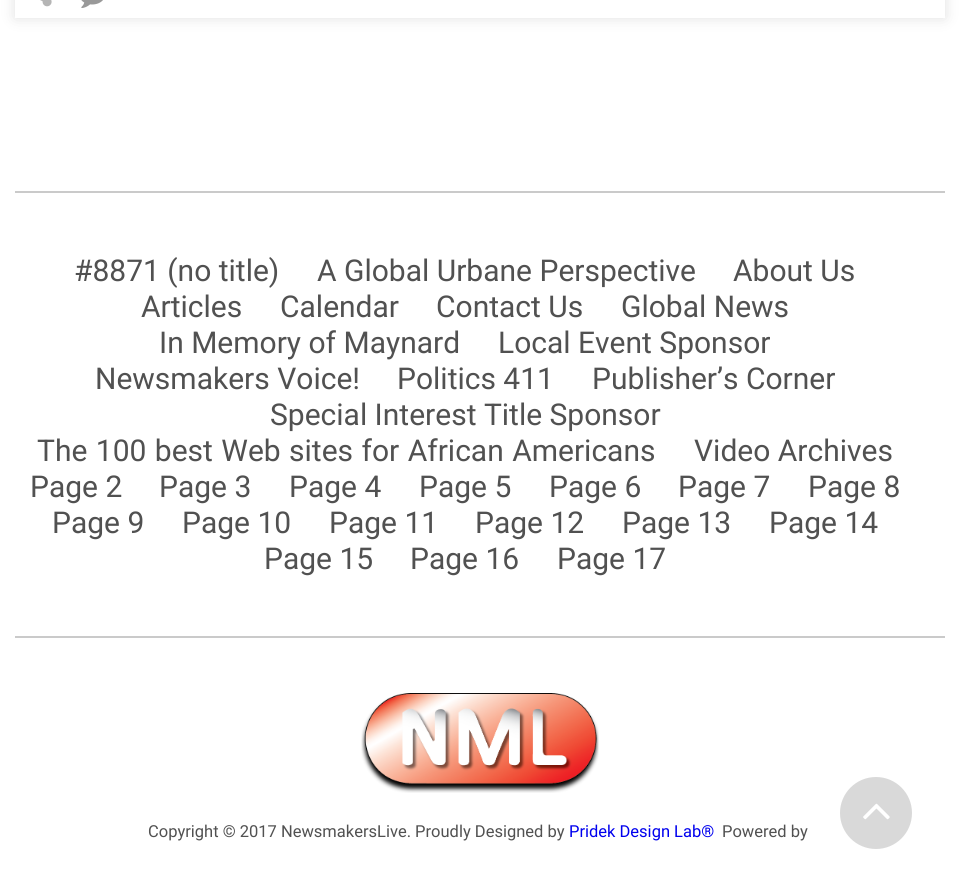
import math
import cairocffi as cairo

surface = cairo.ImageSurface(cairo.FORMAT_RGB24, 960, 896)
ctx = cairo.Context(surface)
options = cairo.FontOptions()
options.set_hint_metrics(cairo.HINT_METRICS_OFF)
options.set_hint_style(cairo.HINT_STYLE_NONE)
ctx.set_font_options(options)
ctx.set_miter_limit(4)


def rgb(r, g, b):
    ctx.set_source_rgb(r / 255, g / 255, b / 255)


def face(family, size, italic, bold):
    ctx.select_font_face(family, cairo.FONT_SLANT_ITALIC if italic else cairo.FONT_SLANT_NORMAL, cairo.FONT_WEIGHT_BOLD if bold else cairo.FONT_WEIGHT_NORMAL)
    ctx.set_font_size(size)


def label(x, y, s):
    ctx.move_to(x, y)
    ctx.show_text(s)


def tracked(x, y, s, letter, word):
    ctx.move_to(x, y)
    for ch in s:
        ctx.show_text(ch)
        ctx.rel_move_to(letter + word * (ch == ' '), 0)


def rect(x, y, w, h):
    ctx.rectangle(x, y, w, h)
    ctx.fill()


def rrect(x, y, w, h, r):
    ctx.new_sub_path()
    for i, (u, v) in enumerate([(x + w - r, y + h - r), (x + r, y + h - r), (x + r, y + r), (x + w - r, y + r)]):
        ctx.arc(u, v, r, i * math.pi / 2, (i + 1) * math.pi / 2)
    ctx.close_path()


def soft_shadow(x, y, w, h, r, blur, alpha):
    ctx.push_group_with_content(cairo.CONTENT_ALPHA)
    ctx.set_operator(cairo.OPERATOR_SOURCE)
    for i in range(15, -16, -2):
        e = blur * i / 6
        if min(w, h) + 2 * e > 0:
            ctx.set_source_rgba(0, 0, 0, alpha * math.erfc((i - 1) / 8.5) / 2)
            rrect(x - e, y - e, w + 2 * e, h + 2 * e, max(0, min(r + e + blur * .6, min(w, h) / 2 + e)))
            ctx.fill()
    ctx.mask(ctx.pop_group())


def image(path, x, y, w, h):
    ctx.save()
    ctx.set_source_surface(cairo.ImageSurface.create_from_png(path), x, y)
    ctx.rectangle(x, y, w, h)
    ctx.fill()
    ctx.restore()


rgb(255, 255, 255)
ctx.paint()
ctx.save()
ctx.set_fill_rule(cairo.FILL_RULE_EVEN_ODD)
ctx.new_path()
ctx.move_to(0, 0)
ctx.line_to(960, 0)
ctx.line_to(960, 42)
ctx.line_to(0, 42)
ctx.close_path()
ctx.move_to(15, -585)
ctx.line_to(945, -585)
ctx.line_to(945, 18)
ctx.line_to(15, 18)
ctx.close_path()
ctx.clip()
rgb(0, 0, 0)
soft_shadow(15, -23, 930, 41, 0, 7.5, 0.12)
ctx.restore()
image('image0.png', 40, 0, 12, 7)
image('image1.png', 81, 0, 22, 8)
rgb(202, 202, 202)
rect(15, 191, 930, 2)
face('Roboto', 30, 0, 0)
rgb(81, 81, 81)
label(74, 281, '#8871 (no title)')
label(317, 281, 'A Global Urbane Perspective')
label(733, 281, 'About Us')
label(141, 317, 'Articles')
label(280, 317, 'Calendar')
label(436, 317, 'Contact Us')
label(621, 317, 'Global News')
label(159, 353, 'In Memory of Maynard')
label(498, 353, 'Local Event Sponsor')
label(95, 389, 'Newsmakers Voice!')
label(397, 389, 'Politics 411')
label(592, 389, 'Publisher’s Corner')
label(270, 425, 'Special Interest Title Sponsor')
tracked(37, 461, 'The 100 best Web sites for African Americans', 0, 1)
label(694, 461, 'Video Archives')
label(30, 497, 'Page 2')
label(159, 497, 'Page 3')
label(289, 497, 'Page 4')
label(419, 497, 'Page 5')
label(549, 497, 'Page 6')
label(678, 497, 'Page 7')
label(808, 497, 'Page 8')
label(52, 533, 'Page 9')
label(182, 533, 'Page 10')
label(329, 533, 'Page 11')
label(475, 533, 'Page 12')
label(622, 533, 'Page 13')
label(769, 533, 'Page 14')
label(264, 569, 'Page 15')
label(410, 569, 'Page 16')
label(557, 569, 'Page 17')
rgb(202, 202, 202)
rect(15, 636, 930, 2)
image('image2.png', 361, 693, 238, 100)
face('Roboto', 16.5, 0, 0)
rgb(81, 81, 81)
label(148, 837, 'Copyright © 2017 NewsmakersLive. Proudly Designed by')
rgb(0, 0, 238)
label(569, 837, 'Pridek Design Lab®')
rgb(81, 81, 81)
label(722, 837, 'Powered by')
rgb(217, 217, 217)
ctx.new_path()
ctx.arc(876, 813, 37.5, 0, 2 * math.pi)
ctx.fill_preserve()
rgb(255, 255, 255)
ctx.set_line_width(3)
ctx.stroke()
image('image3.png', 863, 803, 27, 17)
surface.write_to_png('render.png')
